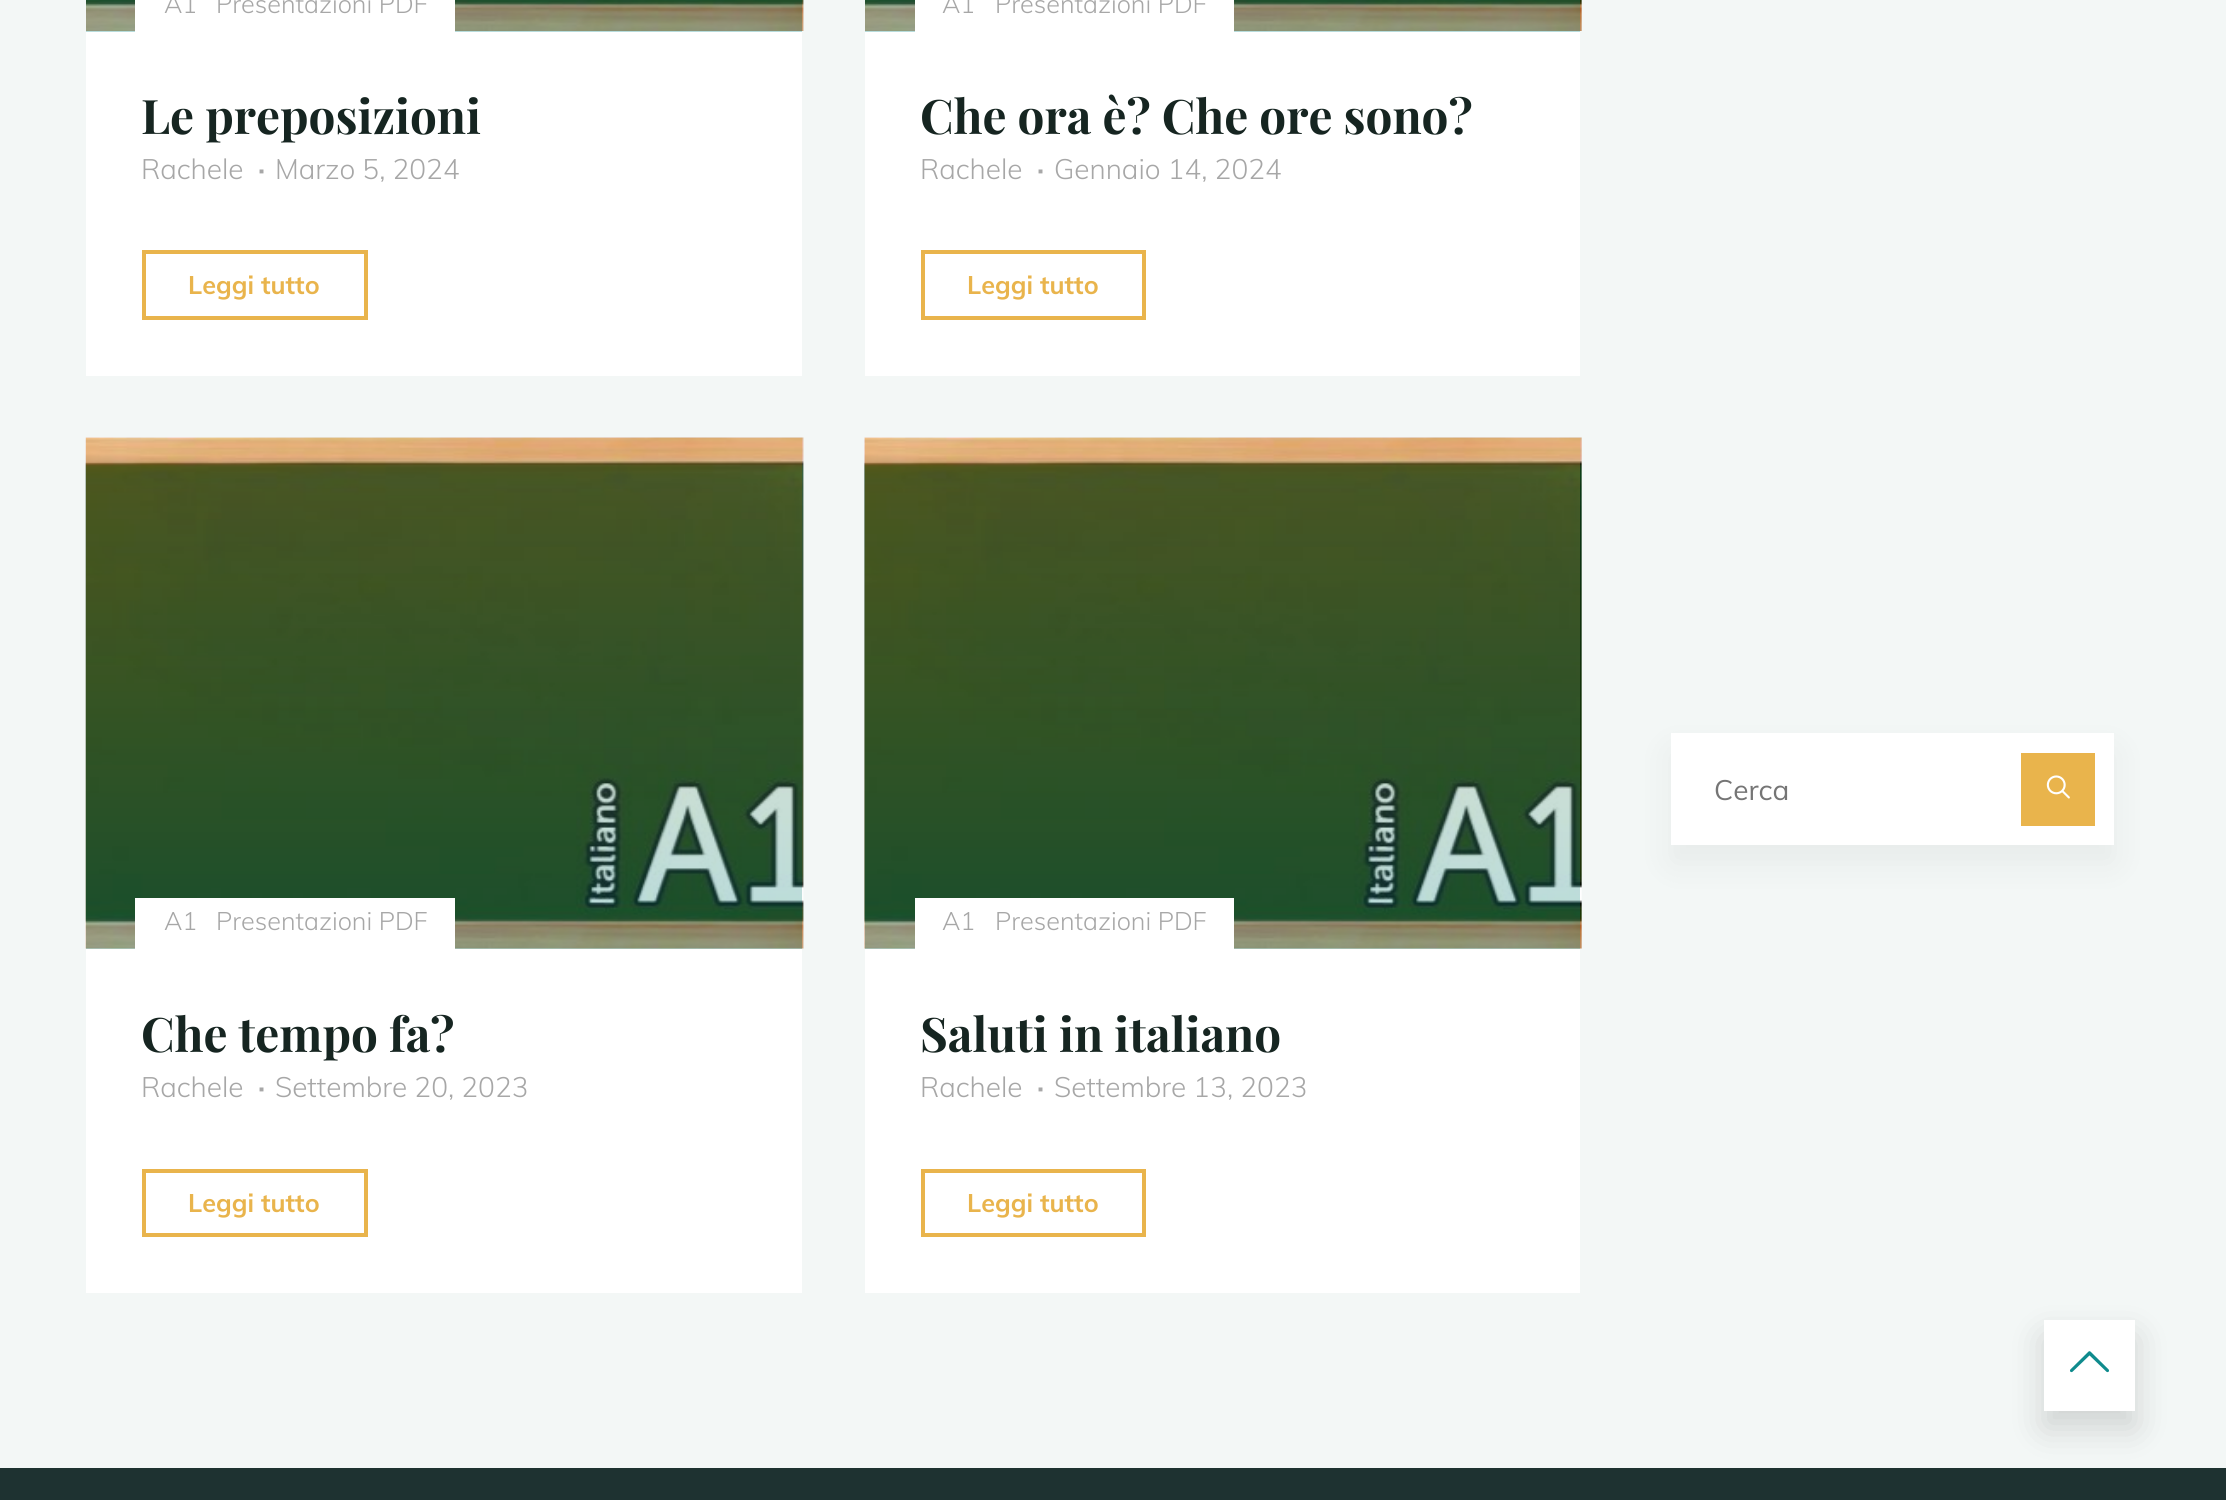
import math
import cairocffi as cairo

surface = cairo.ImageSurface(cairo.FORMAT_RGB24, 2226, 1500)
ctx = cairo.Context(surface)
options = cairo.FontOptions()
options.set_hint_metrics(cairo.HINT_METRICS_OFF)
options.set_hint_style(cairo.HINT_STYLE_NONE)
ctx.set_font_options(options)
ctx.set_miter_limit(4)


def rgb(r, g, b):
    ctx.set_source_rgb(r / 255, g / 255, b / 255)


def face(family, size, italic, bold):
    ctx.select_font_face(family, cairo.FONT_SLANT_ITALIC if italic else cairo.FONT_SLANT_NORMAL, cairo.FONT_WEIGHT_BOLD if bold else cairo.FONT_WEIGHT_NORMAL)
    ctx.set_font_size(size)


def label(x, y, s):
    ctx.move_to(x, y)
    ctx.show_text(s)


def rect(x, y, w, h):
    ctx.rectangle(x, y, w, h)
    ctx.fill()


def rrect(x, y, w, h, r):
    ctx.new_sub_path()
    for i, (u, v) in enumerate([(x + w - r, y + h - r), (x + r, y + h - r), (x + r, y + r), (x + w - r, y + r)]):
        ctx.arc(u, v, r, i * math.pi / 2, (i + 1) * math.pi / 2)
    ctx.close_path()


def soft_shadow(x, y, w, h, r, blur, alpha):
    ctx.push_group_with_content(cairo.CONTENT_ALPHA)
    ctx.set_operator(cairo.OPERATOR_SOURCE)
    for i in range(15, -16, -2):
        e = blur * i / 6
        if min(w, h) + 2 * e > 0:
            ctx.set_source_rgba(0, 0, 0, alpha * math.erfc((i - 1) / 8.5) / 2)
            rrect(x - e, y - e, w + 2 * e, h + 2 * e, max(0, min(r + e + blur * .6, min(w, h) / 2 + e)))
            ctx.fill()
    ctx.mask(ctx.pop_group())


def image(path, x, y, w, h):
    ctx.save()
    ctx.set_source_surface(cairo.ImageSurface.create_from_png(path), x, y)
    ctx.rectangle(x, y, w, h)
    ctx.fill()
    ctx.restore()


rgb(243, 247, 246)
ctx.paint()
rgb(255, 255, 255)
rect(86, 31, 716, 345)
image('image0.png', 86, 0, 718, 31)
gradient = cairo.LinearGradient(444, -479, 444, 32)
gradient.add_color_stop_rgba(0, 0.914, 0.706, 0.298, 0.3)
gradient.add_color_stop_rgba(1, 0.059, 0.545, 0.553, 0.3)
ctx.set_source(gradient)
rect(86, 0, 716, 32)
rgb(255, 255, 255)
rect(135, 0, 320, 32)
face('Muli Light', 25.25, 0, 0)
rgb(167, 167, 167)
label(164, 13, 'A1')
label(216, 13, 'Presentazioni PDF')
face('Playfair Display', 47.6, 0, 1)
rgb(22, 37, 33)
label(141, 134, 'Le preposizioni')
face('Muli Light', 28, 0, 0)
rgb(167, 167, 167)
label(141, 179, 'Rachele')
face('Muli', 28, 0, 1)
label(258, 179, '·')
face('Muli Light', 28, 0, 0)
label(275, 179, 'Marzo 5, 2024')
ctx.rectangle(144, 252, 222, 66)
rgb(233, 180, 76)
ctx.set_line_width(4)
ctx.stroke()
face('Muli', 25.25, 0, 1)
label(188, 294, 'Leggi tutto')
rgb(255, 255, 255)
rect(865, 31, 715, 345)
image('image1.png', 865, 0, 717, 31)
gradient = cairo.LinearGradient(1222, -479, 1222, 32)
gradient.add_color_stop_rgba(0, 0.914, 0.706, 0.298, 0.3)
gradient.add_color_stop_rgba(1, 0.059, 0.545, 0.553, 0.3)
ctx.set_source(gradient)
rect(865, 0, 715, 32)
rgb(255, 255, 255)
rect(915, 0, 319, 32)
face('Muli Light', 25.25, 0, 0)
rgb(167, 167, 167)
label(942, 13, 'A1')
label(995, 13, 'Presentazioni PDF')
face('Playfair Display', 47.6, 0, 1)
rgb(22, 37, 33)
label(920, 134, 'Che ora è? Che ore sono?')
face('Muli Light', 28, 0, 0)
rgb(167, 167, 167)
label(920, 179, 'Rachele')
face('Muli', 28, 0, 1)
label(1037, 179, '·')
face('Muli Light', 28, 0, 0)
label(1054, 179, 'Gennaio 14, 2024')
ctx.rectangle(923, 252, 221, 66)
rgb(233, 180, 76)
ctx.stroke()
face('Muli', 25.25, 0, 1)
label(967, 294, 'Leggi tutto')
rgb(255, 255, 255)
rect(86, 948, 716, 345)
image('image2.png', 85, 437, 719, 512)
gradient = cairo.LinearGradient(444, 437, 444, 949)
gradient.add_color_stop_rgba(0, 0.914, 0.706, 0.298, 0.3)
gradient.add_color_stop_rgba(1, 0.059, 0.545, 0.553, 0.3)
ctx.set_source(gradient)
rect(86, 438, 716, 511)
rgb(255, 255, 255)
rect(135, 898, 320, 51)
face('Muli Light', 25.25, 0, 0)
rgb(167, 167, 167)
label(164, 930, 'A1')
label(216, 930, 'Presentazioni PDF')
face('Playfair Display', 47.6, 0, 1)
rgb(22, 37, 33)
label(141, 1052, 'Che tempo fa?')
face('Muli Light', 28, 0, 0)
rgb(167, 167, 167)
label(141, 1097, 'Rachele')
face('Muli', 28, 0, 1)
label(258, 1097, '·')
face('Muli Light', 28, 0, 0)
label(275, 1097, 'Settembre 20, 2023')
ctx.rectangle(144, 1171, 222, 64)
rgb(233, 180, 76)
ctx.stroke()
face('Muli', 25.25, 0, 1)
label(188, 1212, 'Leggi tutto')
rgb(255, 255, 255)
rect(865, 948, 715, 345)
image('image3.png', 864, 437, 718, 512)
gradient = cairo.LinearGradient(1222, 437, 1222, 949)
gradient.add_color_stop_rgba(0, 0.914, 0.706, 0.298, 0.3)
gradient.add_color_stop_rgba(1, 0.059, 0.545, 0.553, 0.3)
ctx.set_source(gradient)
rect(865, 438, 715, 511)
rgb(255, 255, 255)
rect(915, 898, 319, 51)
face('Muli Light', 25.25, 0, 0)
rgb(167, 167, 167)
label(942, 930, 'A1')
label(995, 930, 'Presentazioni PDF')
face('Playfair Display', 47.6, 0, 1)
rgb(22, 37, 33)
label(920, 1052, 'Saluti in italiano')
face('Muli Light', 28, 0, 0)
rgb(167, 167, 167)
label(920, 1097, 'Rachele')
face('Muli', 28, 0, 1)
label(1037, 1097, '·')
face('Muli Light', 28, 0, 0)
label(1054, 1097, 'Settembre 13, 2023')
ctx.rectangle(923, 1171, 221, 64)
rgb(233, 180, 76)
ctx.stroke()
face('Muli', 25.25, 0, 1)
label(967, 1212, 'Leggi tutto')
rgb(0, 0, 0)
soft_shadow(1671, 751, 443, 112, 0, 17.5, 0.05)
rgb(255, 255, 255)
rect(1671, 733, 443, 112)
face('Muli', 28, 0, 0)
rgb(117, 117, 117)
label(1714, 800, 'Cerca')
rgb(233, 180, 76)
rect(2021, 753, 74, 73)
image('image4.png', 2046, 775, 24, 24)
rgb(30, 50, 49)
rect(0, 1468, 2226, 32)
rgb(0, 0, 0)
soft_shadow(2044, 1337, 91, 91, 0, 17.5, 0.15)
rgb(255, 255, 255)
rect(2044, 1320, 91, 91)
image('image5.png', 2070, 1351, 39, 22)
surface.write_to_png('render.png')
